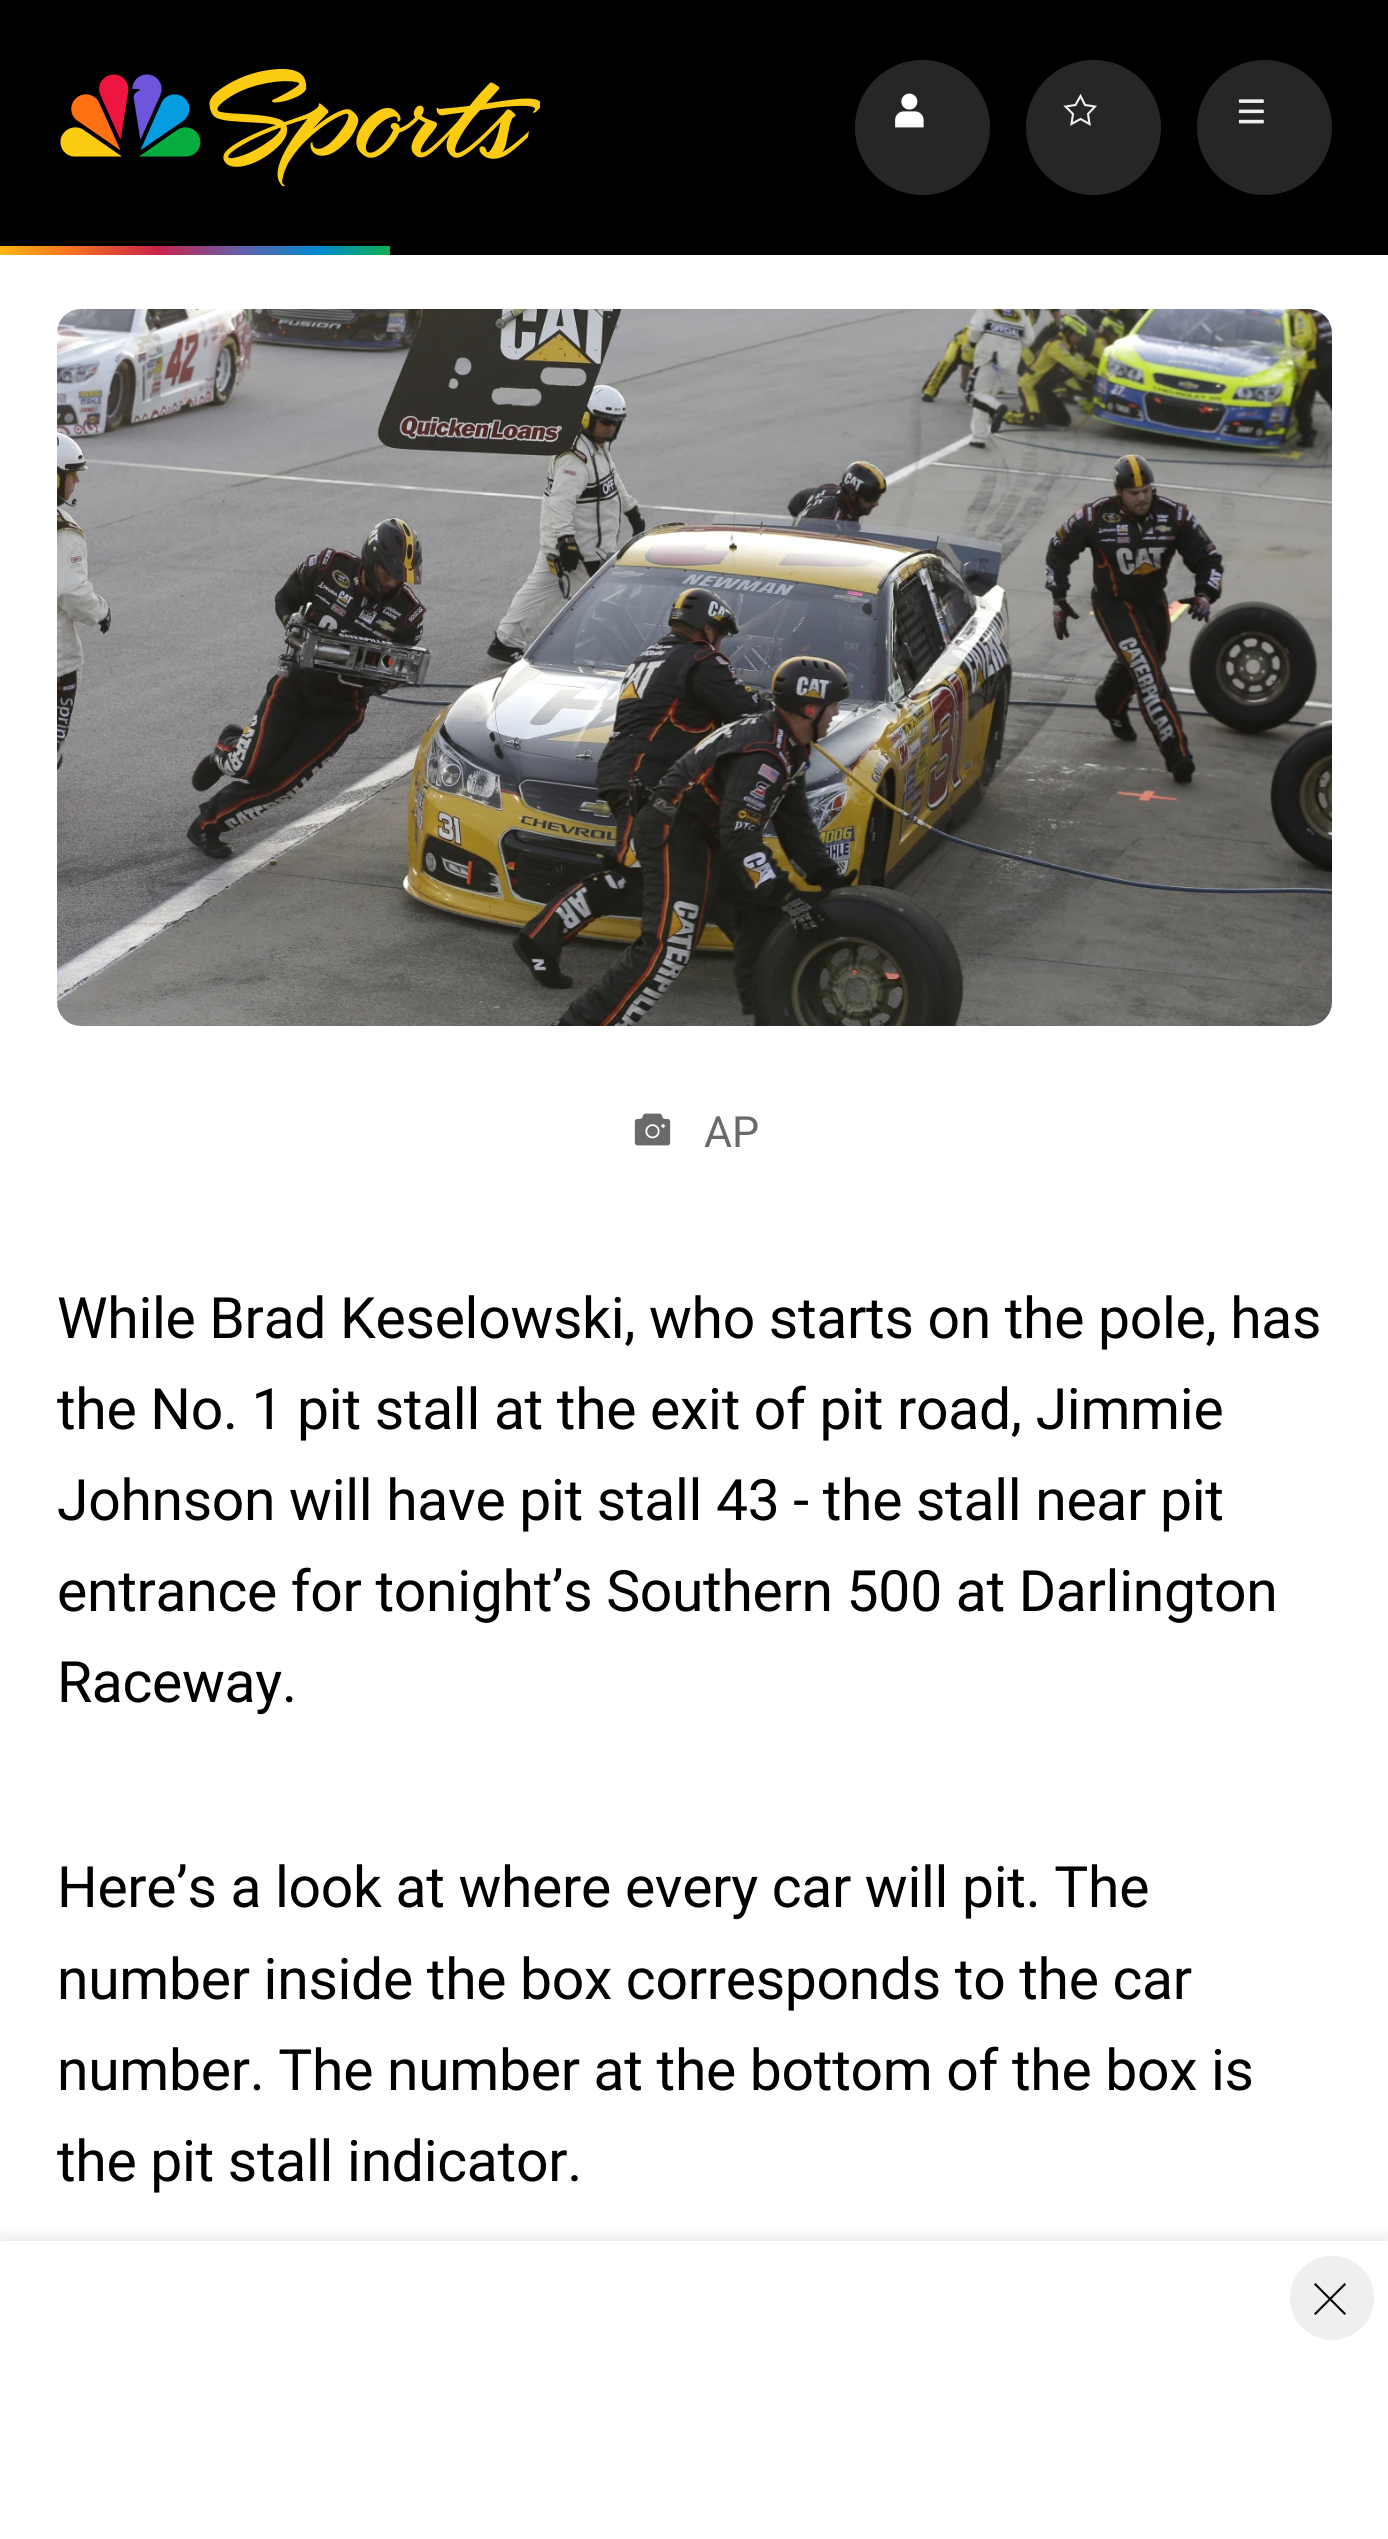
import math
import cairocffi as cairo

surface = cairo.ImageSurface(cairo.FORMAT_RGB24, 1388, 2539)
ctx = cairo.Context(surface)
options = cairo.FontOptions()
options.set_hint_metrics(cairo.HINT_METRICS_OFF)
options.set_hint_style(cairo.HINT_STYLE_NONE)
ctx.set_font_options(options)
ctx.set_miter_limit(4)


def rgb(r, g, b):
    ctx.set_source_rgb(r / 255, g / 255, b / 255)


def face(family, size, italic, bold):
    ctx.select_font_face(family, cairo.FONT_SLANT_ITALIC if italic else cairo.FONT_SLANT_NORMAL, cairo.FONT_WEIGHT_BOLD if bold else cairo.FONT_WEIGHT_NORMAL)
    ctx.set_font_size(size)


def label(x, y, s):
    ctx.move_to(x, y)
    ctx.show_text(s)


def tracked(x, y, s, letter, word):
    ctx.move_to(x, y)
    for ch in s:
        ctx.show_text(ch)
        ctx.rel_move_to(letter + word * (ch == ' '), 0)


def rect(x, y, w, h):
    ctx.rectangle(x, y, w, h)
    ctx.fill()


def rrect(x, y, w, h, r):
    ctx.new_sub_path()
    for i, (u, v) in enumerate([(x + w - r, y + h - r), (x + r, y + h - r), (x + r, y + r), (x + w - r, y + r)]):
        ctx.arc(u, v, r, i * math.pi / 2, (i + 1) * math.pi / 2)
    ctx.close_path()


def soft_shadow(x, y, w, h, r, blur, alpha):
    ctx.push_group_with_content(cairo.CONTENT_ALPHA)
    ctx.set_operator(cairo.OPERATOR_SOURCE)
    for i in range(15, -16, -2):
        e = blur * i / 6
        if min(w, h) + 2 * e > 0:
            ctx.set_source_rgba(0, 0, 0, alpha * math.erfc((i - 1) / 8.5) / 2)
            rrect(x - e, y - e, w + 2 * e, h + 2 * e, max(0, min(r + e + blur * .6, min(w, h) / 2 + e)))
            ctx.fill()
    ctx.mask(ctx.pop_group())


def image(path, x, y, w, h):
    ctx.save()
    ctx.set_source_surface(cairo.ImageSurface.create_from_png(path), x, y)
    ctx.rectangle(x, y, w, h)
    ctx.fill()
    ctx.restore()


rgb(255, 255, 255)
ctx.paint()
rgb(0, 0, 0)
rect(0, 0, 1388, 255)
image('image0.png', 60, 68, 480, 119)
rgb(38, 38, 38)
ctx.arc(922.5, 127.5, 67.5, 0, 2 * math.pi)
ctx.fill()
image('image1.png', 895, 93, 29, 35)
ctx.arc(1093.5, 127.5, 67.5, 0, 2 * math.pi)
ctx.fill()
ctx.new_path()
ctx.move_to(1080.5, 96)
ctx.line_to(1085, 105)
ctx.line_to(1095, 106.5)
ctx.line_to(1088, 114)
ctx.line_to(1089.5, 124)
ctx.line_to(1080.5, 119)
ctx.line_to(1071.5, 124)
ctx.line_to(1073, 114)
ctx.line_to(1065.5, 106.5)
ctx.line_to(1075.5, 105)
ctx.close_path()
rgb(240, 240, 240)
ctx.set_line_width(2.1)
ctx.stroke()
rgb(38, 38, 38)
ctx.arc(1264.5, 127.5, 67.5, 0, 2 * math.pi)
ctx.fill()
image('image2.png', 1238, 99, 26, 25)
image('image3.png', 0, 246, 390, 9)
image('image4.png', 57, 309, 1275, 717)
image('image5.png', 634, 1113, 37, 33)
face('Roboto', 43, 0, 0)
rgb(106, 106, 106)
label(704, 1147, 'AP')
face('Roboto', 57, 0, 0)
rgb(0, 0, 0)
tracked(57, 1338, 'While Brad Keselowski, who starts on the pole, has', -0.28, 0)
tracked(57, 1429, 'the No. 1 pit stall at the exit of pit road, Jimmie', -0.28, 0)
tracked(57, 1520, 'Johnson will have pit stall 43 - the stall near pit', -0.28, 0)
tracked(57, 1611, 'entrance for tonight’s Southern 500 at Darlington', -0.28, 0)
tracked(57, 1702, 'Raceway.', -0.28, 0)
tracked(57, 1907, 'Here’s a look at where every car will pit. The', -0.28, 0)
tracked(57, 1999, 'number inside the box corresponds to the car', -0.28, 0)
tracked(57, 2090, 'number. The number at the bottom of the box is', -0.28, 0)
tracked(57, 2181, 'the pit stall indicator.', -0.28, 0)
ctx.save()
ctx.rectangle(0, 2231, 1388, 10)
ctx.clip()
rgb(0, 0, 0)
soft_shadow(0, 2235, 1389, 300, 0, 6, 0.08)
ctx.restore()
rgb(239, 239, 239)
ctx.arc(1332, 2298, 42, 0, 2 * math.pi)
ctx.fill()
image('image6.png', 1314, 2283, 32, 32)
surface.write_to_png('render.png')
